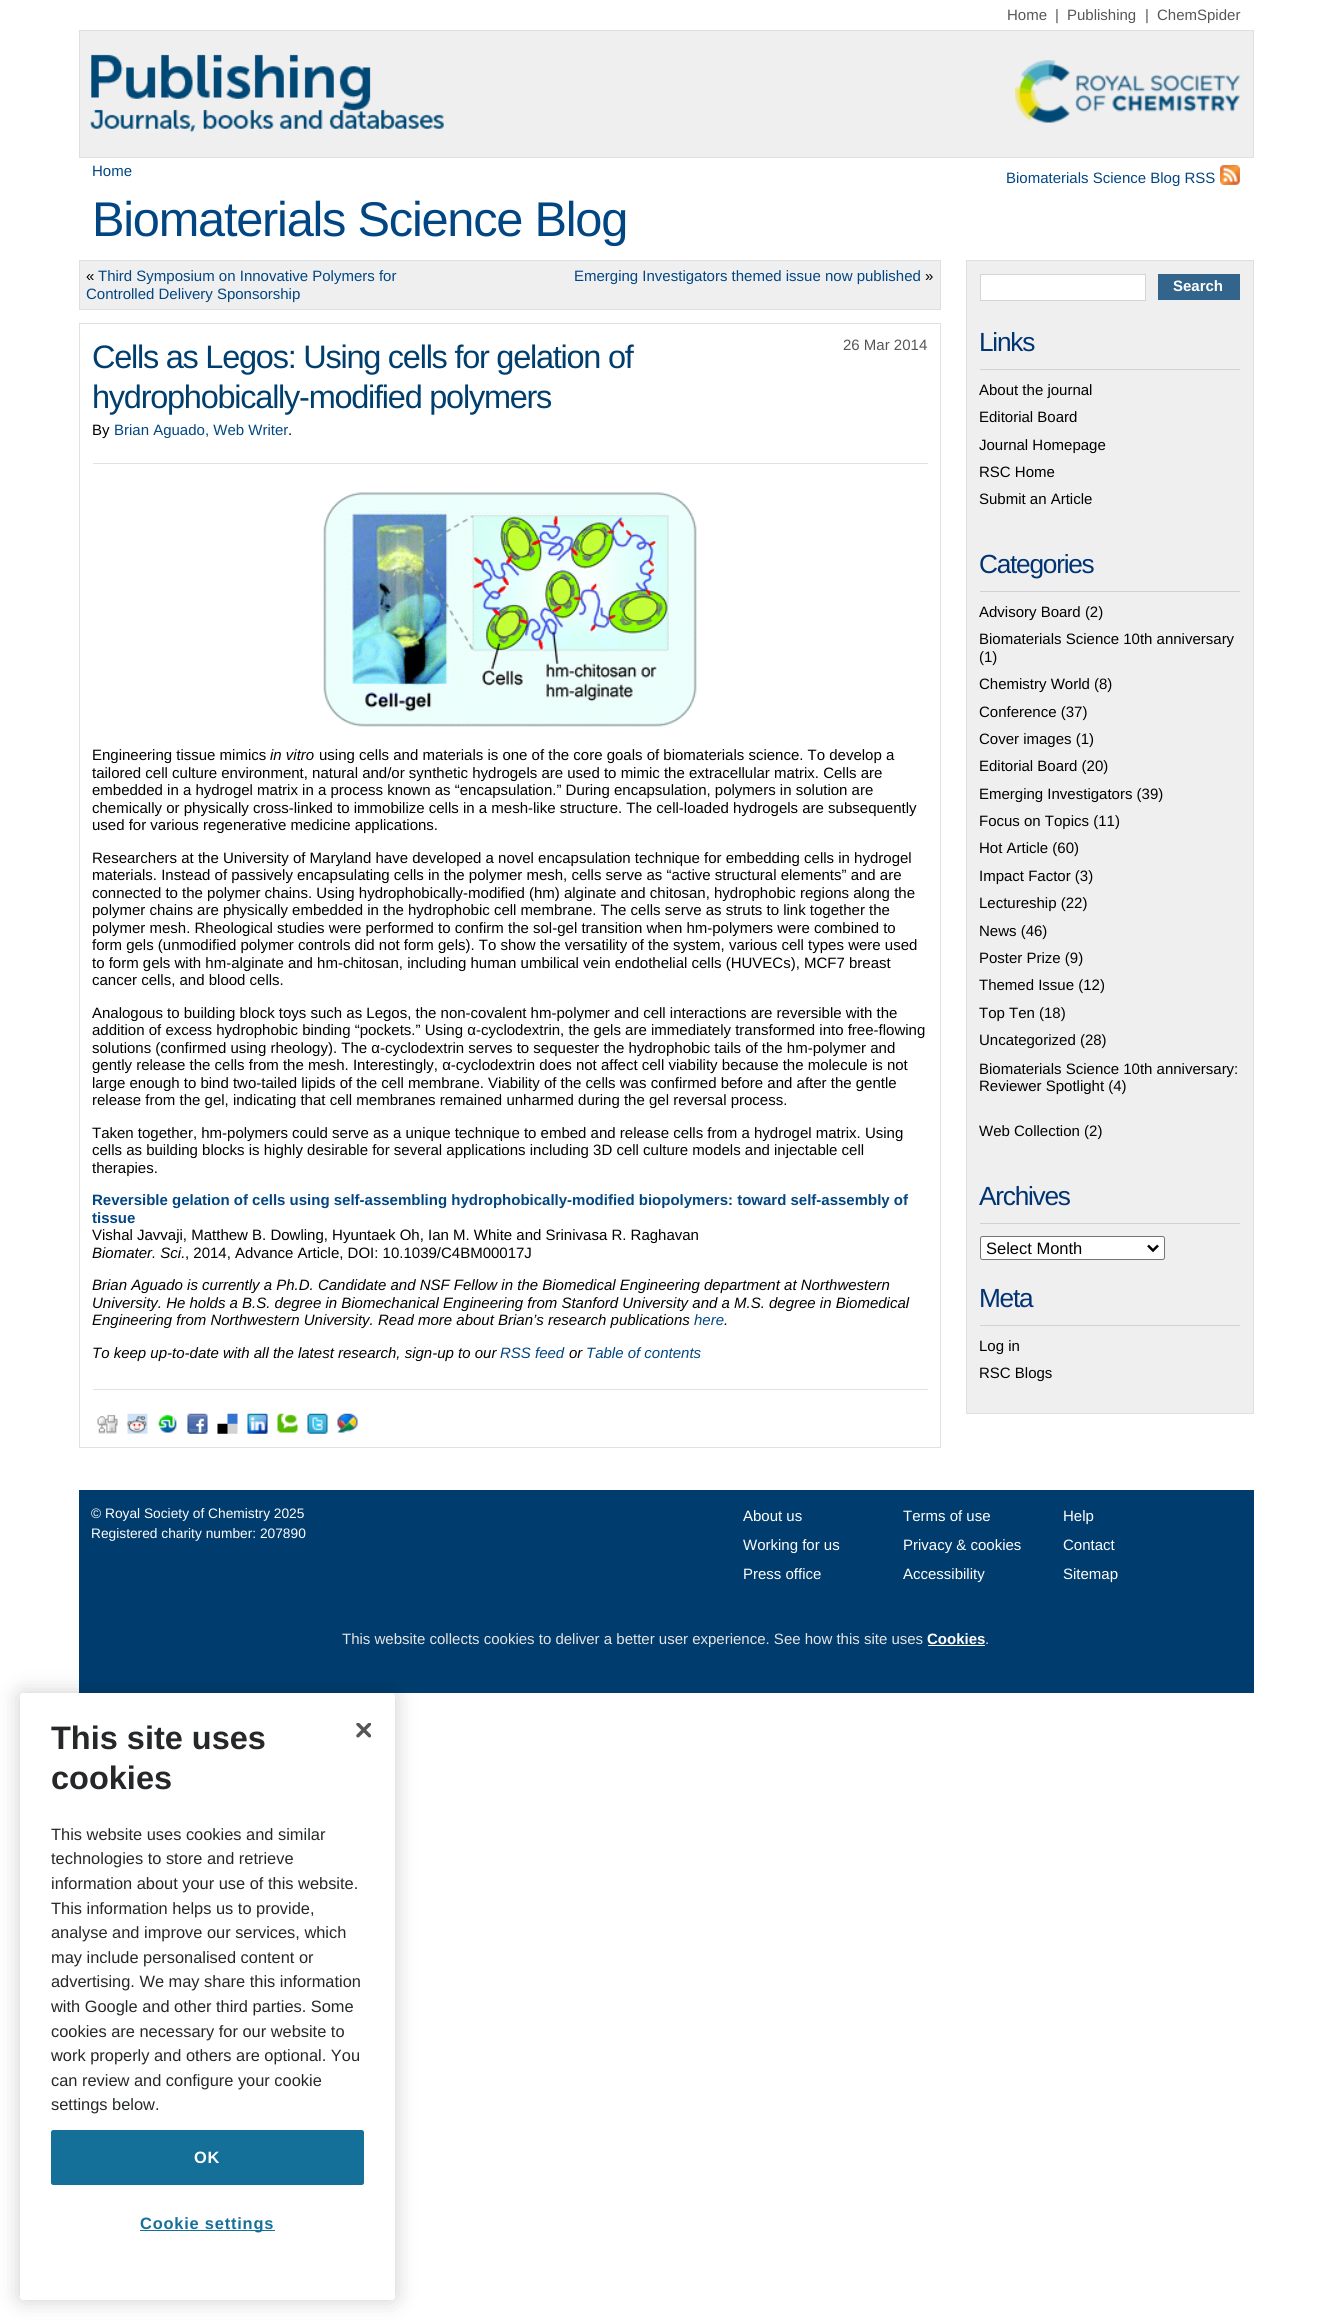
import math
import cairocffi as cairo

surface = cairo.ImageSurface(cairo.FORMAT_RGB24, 1331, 2320)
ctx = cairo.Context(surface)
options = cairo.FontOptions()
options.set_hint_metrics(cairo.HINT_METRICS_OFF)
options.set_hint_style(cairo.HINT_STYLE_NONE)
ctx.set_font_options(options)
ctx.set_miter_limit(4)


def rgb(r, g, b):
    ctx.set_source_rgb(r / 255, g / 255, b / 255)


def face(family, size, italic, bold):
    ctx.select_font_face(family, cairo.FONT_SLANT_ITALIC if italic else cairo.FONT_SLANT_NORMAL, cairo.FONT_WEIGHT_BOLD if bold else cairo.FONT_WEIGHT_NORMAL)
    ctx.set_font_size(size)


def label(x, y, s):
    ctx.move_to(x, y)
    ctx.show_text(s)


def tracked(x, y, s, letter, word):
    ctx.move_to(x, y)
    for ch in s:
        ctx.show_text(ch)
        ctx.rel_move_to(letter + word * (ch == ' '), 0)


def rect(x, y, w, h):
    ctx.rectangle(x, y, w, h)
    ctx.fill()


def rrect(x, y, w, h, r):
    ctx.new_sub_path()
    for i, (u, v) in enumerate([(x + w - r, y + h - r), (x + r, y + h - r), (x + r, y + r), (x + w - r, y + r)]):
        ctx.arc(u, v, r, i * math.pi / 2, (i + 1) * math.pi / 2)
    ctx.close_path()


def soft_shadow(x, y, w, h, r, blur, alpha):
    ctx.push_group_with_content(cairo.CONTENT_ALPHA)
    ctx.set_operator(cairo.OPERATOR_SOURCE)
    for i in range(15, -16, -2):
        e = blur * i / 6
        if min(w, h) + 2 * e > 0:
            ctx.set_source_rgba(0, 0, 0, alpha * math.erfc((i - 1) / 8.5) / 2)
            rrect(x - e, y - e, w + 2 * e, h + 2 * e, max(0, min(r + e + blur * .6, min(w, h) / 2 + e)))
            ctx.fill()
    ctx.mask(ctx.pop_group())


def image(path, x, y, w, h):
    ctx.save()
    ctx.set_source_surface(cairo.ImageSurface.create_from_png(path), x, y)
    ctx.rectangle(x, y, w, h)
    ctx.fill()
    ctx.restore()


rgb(255, 255, 255)
ctx.paint()
face('Liberation Sans', 15, 0, 0)
rgb(86, 86, 86)
label(1007, 20, 'Home')
label(1055, 20, '|')
label(1067, 20, 'Publishing')
label(1145, 20, '|')
label(1157, 20, 'ChemSpider')
rgb(239, 239, 239)
ctx.rectangle(79.5, 30.5, 1174, 127)
ctx.fill_preserve()
rgb(223, 223, 223)
ctx.set_line_width(1)
ctx.stroke()
image('image0.png', 90, 54, 354, 78)
image('image1.png', 1015, 60, 226, 63)
rgb(1, 70, 130)
label(92, 176, 'Home')
label(1006, 183, 'Biomaterials Science Blog RSS')
image('image2.png', 1220, 165, 20, 20)
face('Liberation Sans', 48.75, 0, 0)
tracked(92, 236, 'Biomaterials Science Blog', -1.25, 0)
rgb(239, 239, 239)
ctx.rectangle(79.5, 260.5, 861, 49)
ctx.fill_preserve()
rgb(223, 223, 223)
ctx.stroke()
face('Liberation Sans', 15, 0, 0)
rgb(0, 0, 0)
label(86, 281, '«')
rgb(1, 70, 130)
label(98, 281, 'Third Symposium on Innovative Polymers for')
label(86, 299, 'Controlled Delivery Sponsorship')
label(574, 281, 'Emerging Investigators themed issue now published')
rgb(0, 0, 0)
label(925, 281, '»')
ctx.rectangle(79.5, 323.5, 861, 1124)
rgb(225, 225, 225)
ctx.stroke()
face('Liberation Sans', 32.5, 0, 0)
rgb(0, 62, 110)
tracked(92, 368, 'Cells as Legos: Using cells for gelation of', -1.25, 0)
tracked(92, 408, 'hydrophobically-modified polymers', -1.25, 0)
face('Liberation Sans', 15, 0, 0)
rgb(86, 86, 86)
label(843, 350, '26 Mar 2014')
rgb(0, 0, 0)
label(92, 435, 'By')
rgb(1, 70, 130)
label(114, 435, 'Brian Aguado, Web Writer')
rgb(0, 0, 0)
label(288, 435, '.')
rgb(225, 225, 225)
rect(93, 463, 835, 1)
rect(93, 1389, 835, 1)
image('image3.png', 323, 492, 374, 235)
rgb(0, 0, 0)
label(92, 760, 'Engineering tissue mimics')
face('Liberation Sans', 15, 1, 0)
label(270, 760, 'in vitro')
face('Liberation Sans', 15, 0, 0)
label(319, 760, 'using cells and materials is one of the core goals of biomaterials science. To develop a')
label(92, 778, 'tailored cell culture environment, natural and/or synthetic hydrogels are used to mimic the extracellular matrix. Cells are')
label(92, 795, 'embedded in a hydrogel matrix in a process known as “encapsulation.” During encapsulation, polymers in solution are')
label(92, 813, 'chemically or physically cross-linked to immobilize cells in a mesh-like structure. The cell-loaded hydrogels are subsequently')
label(92, 830, 'used for various regenerative medicine applications.')
label(92, 863, 'Researchers at the University of Maryland have developed a novel encapsulation technique for embedding cells in hydrogel')
label(92, 880, 'materials. Instead of passively encapsulating cells in the polymer mesh, cells serve as “active structural elements” and are')
label(92, 898, 'connected to the polymer chains. Using hydrophobically-modified (hm) alginate and chitosan, hydrophobic regions along the')
label(92, 915, 'polymer chains are physically embedded in the hydrophobic cell membrane. The cells serve as struts to link together the')
label(92, 933, 'polymer mesh. Rheological studies were performed to confirm the sol-gel transition when hm-polymers were combined to')
label(92, 950, 'form gels (unmodified polymer controls did not form gels). To show the versatility of the system, various cell types were used')
label(92, 968, 'to form gels with hm-alginate and hm-chitosan, including human umbilical vein endothelial cells (HUVECs), MCF7 breast')
label(92, 985, 'cancer cells, and blood cells.')
label(92, 1018, 'Analogous to building block toys such as Legos, the non-covalent hm-polymer and cell interactions are reversible with the')
label(92, 1035, 'addition of excess hydrophobic binding “pockets.” Using α-cyclodextrin, the gels are immediately transformed into free-flowing')
label(92, 1053, 'solutions (confirmed using rheology). The α-cyclodextrin serves to sequester the hydrophobic tails of the hm-polymer and')
label(92, 1070, 'gently release the cells from the mesh. Interestingly, α-cyclodextrin does not affect cell viability because the molecule is not')
label(92, 1088, 'large enough to bind two-tailed lipids of the cell membrane. Viability of the cells was confirmed before and after the gentle')
label(92, 1105, 'release from the gel, indicating that cell membranes remained unharmed during the gel reversal process.')
label(92, 1138, 'Taken together, hm-polymers could serve as a unique technique to embed and release cells from a hydrogel matrix. Using')
label(92, 1155, 'cells as building blocks is highly desirable for several applications including 3D cell culture models and injectable cell')
label(92, 1173, 'therapies.')
face('Liberation Sans', 15, 0, 1)
rgb(1, 70, 130)
label(92, 1205, 'Reversible gelation of cells using self-assembling hydrophobically-modified biopolymers: toward self-assembly of')
label(92, 1223, 'tissue')
face('Liberation Sans', 15, 0, 0)
rgb(0, 0, 0)
label(92, 1240, 'Vishal Javvaji, Matthew B. Dowling, Hyuntaek Oh, Ian M. White and Srinivasa R. Raghavan')
face('Liberation Sans', 15, 1, 0)
label(92, 1258, 'Biomater. Sci.')
face('Liberation Sans', 15, 0, 0)
label(185, 1258, ', 2014, Advance Article, DOI: 10.1039/C4BM00017J')
face('Liberation Sans', 15, 1, 0)
label(92, 1290, 'Brian Aguado is currently a Ph.D. Candidate and NSF Fellow in the Biomedical Engineering department at Northwestern')
label(92, 1308, 'University. He holds a B.S. degree in Biomechanical Engineering from Stanford University and a M.S. degree in Biomedical')
label(92, 1325, 'Engineering from Northwestern University. Read more about Brian’s research publications')
rgb(1, 70, 130)
label(694, 1325, 'here')
rgb(0, 0, 0)
label(724, 1325, '.')
label(92, 1358, 'To keep up-to-date with all the latest research, sign-up to our')
rgb(1, 70, 130)
label(500, 1358, 'RSS feed')
rgb(0, 0, 0)
label(569, 1358, 'or')
rgb(1, 70, 130)
label(586, 1358, 'Table of contents')
image('image4.png', 97, 1414, 21, 20)
image('image5.png', 127, 1413, 21, 21)
image('image6.png', 158, 1414, 19, 19)
image('image7.png', 187, 1413, 21, 21)
image('image8.png', 217, 1413, 21, 21)
image('image9.png', 247, 1413, 21, 21)
image('image10.png', 277, 1413, 21, 20)
image('image11.png', 307, 1413, 21, 21)
image('image12.png', 337, 1413, 21, 20)
rgb(239, 239, 239)
ctx.rectangle(966.5, 260.5, 287, 1153)
ctx.fill_preserve()
rgb(223, 223, 223)
ctx.stroke()
rgb(255, 255, 255)
ctx.rectangle(980.5, 274.5, 165, 26)
ctx.fill_preserve()
rgb(212, 212, 212)
ctx.stroke()
rgb(51, 100, 139)
rect(1158, 274, 82, 26)
face('Liberation Sans', 15, 0, 1)
rgb(255, 255, 255)
label(1173, 291, 'Search')
rgb(206, 210, 213)
rect(980, 369, 260, 1)
face('Liberation Sans', 26.25, 0, 0)
rgb(0, 51, 114)
tracked(979, 351, 'Links', -1.25, 0)
face('Liberation Sans', 15, 0, 0)
rgb(0, 0, 0)
label(979, 395, 'About the journal')
label(979, 422, 'Editorial Board')
label(979, 450, 'Journal Homepage')
label(979, 477, 'RSC Home')
label(979, 504, 'Submit an Article')
rgb(206, 210, 213)
rect(980, 591, 260, 1)
face('Liberation Sans', 26.25, 0, 0)
rgb(0, 51, 114)
tracked(979, 573, 'Categories', -1.25, 0)
face('Liberation Sans', 15, 0, 0)
rgb(0, 0, 0)
label(979, 617, 'Advisory Board (2)')
label(979, 644, 'Biomaterials Science 10th anniversary')
label(979, 662, '(1)')
label(979, 689, 'Chemistry World (8)')
label(979, 717, 'Conference (37)')
label(979, 744, 'Cover images (1)')
label(979, 771, 'Editorial Board (20)')
label(979, 799, 'Emerging Investigators (39)')
label(979, 826, 'Focus on Topics (11)')
label(979, 853, 'Hot Article (60)')
label(979, 881, 'Impact Factor (3)')
label(979, 908, 'Lectureship (22)')
label(979, 936, 'News (46)')
label(979, 963, 'Poster Prize (9)')
label(979, 990, 'Themed Issue (12)')
label(979, 1018, 'Top Ten (18)')
label(979, 1045, 'Uncategorized (28)')
label(979, 1074, 'Biomaterials Science 10th anniversary:')
label(979, 1091, 'Reviewer Spotlight (4)')
label(979, 1136, 'Web Collection (2)')
rgb(206, 210, 213)
rect(980, 1223, 260, 1)
face('Liberation Sans', 26.25, 0, 0)
rgb(0, 51, 114)
tracked(979, 1205, 'Archives', -1.25, 0)
rgb(255, 255, 255)
rrect(980.5, 1236.5, 184, 23, 2)
ctx.fill_preserve()
rgb(118, 118, 118)
ctx.stroke()
ctx.new_path()
ctx.move_to(1148, 1245.5)
ctx.line_to(1153, 1250.5)
ctx.line_to(1158, 1245.5)
rgb(0, 0, 0)
ctx.set_line_width(2.5)
ctx.stroke()
face('Liberation Sans', 16.5, 0, 0)
label(986, 1254, 'Select Month')
rgb(206, 210, 213)
rect(980, 1325, 260, 1)
face('Liberation Sans', 26.25, 0, 0)
rgb(0, 51, 114)
tracked(979, 1307, 'Meta', -1.25, 0)
face('Liberation Sans', 15, 0, 0)
rgb(0, 0, 0)
label(979, 1351, 'Log in')
label(979, 1378, 'RSC Blogs')
rgb(0, 61, 110)
rect(79, 1490, 1175, 203)
face('Liberation Sans', 13.75, 0, 0)
rgb(255, 255, 255)
label(91, 1518, '© Royal Society of Chemistry 2025')
face('Liberation Sans', 15, 0, 0)
label(743, 1521, 'About us')
label(903, 1521, 'Terms of use')
label(1063, 1521, 'Help')
label(743, 1550, 'Working for us')
label(903, 1550, 'Privacy & cookies')
label(1063, 1550, 'Contact')
label(743, 1579, 'Press office')
label(903, 1579, 'Accessibility')
label(1063, 1579, 'Sitemap')
face('Liberation Sans', 13.75, 0, 0)
label(91, 1538, 'Registered charity number: 207890')
face('Liberation Sans', 15, 0, 0)
rgb(229, 229, 229)
label(342, 1644, 'This website collects cookies to deliver a better user experience. See how this site uses')
face('Liberation Sans', 15, 0, 1)
rgb(255, 255, 255)
label(927, 1644, 'Cookies')
face('Liberation Sans', 15, 0, 0)
rgb(229, 229, 229)
label(985, 1644, '.')
rgb(255, 255, 255)
rect(928, 1645, 57, 1)
rgb(0, 0, 0)
soft_shadow(20, 1693, 375, 607, 3, 11, 0.2)
rgb(255, 255, 255)
rrect(20, 1693, 375, 607, 3)
ctx.fill()
face('Liberation Sans', 32.5, 0, 1)
rgb(37, 39, 41)
label(51, 1749, 'This site uses')
label(51, 1789, 'cookies')
face('Liberation Sans', 16.4, 0, 0)
label(51, 1840, 'This website uses cookies and similar')
label(51, 1864, 'technologies to store and retrieve')
label(51, 1889, 'information about your use of this website.')
label(51, 1914, 'This information helps us to provide,')
label(51, 1938, 'analyse and improve our services, which')
label(51, 1963, 'may include personalised content or')
label(51, 1987, 'advertising. We may share this information')
label(51, 2012, 'with Google and other third parties. Some')
label(51, 2037, 'cookies are necessary for our website to')
label(51, 2061, 'work properly and others are optional. You')
label(51, 2086, 'can review and configure your cookie')
label(51, 2110, 'settings below.')
image('image13.png', 356, 1723, 15, 15)
rgb(20, 112, 152)
rrect(51.5, 2130.5, 312, 54, 2)
ctx.fill_preserve()
ctx.set_line_width(1)
ctx.stroke()
face('Liberation Sans', 16.4, 0, 1)
rgb(255, 255, 255)
tracked(194, 2163, 'OK', 0.8, 0)
rgb(20, 112, 152)
rect(140, 2230, 135, 1)
tracked(140, 2229, 'Cookie settings', 0.8, 0)
surface.write_to_png('render.png')
